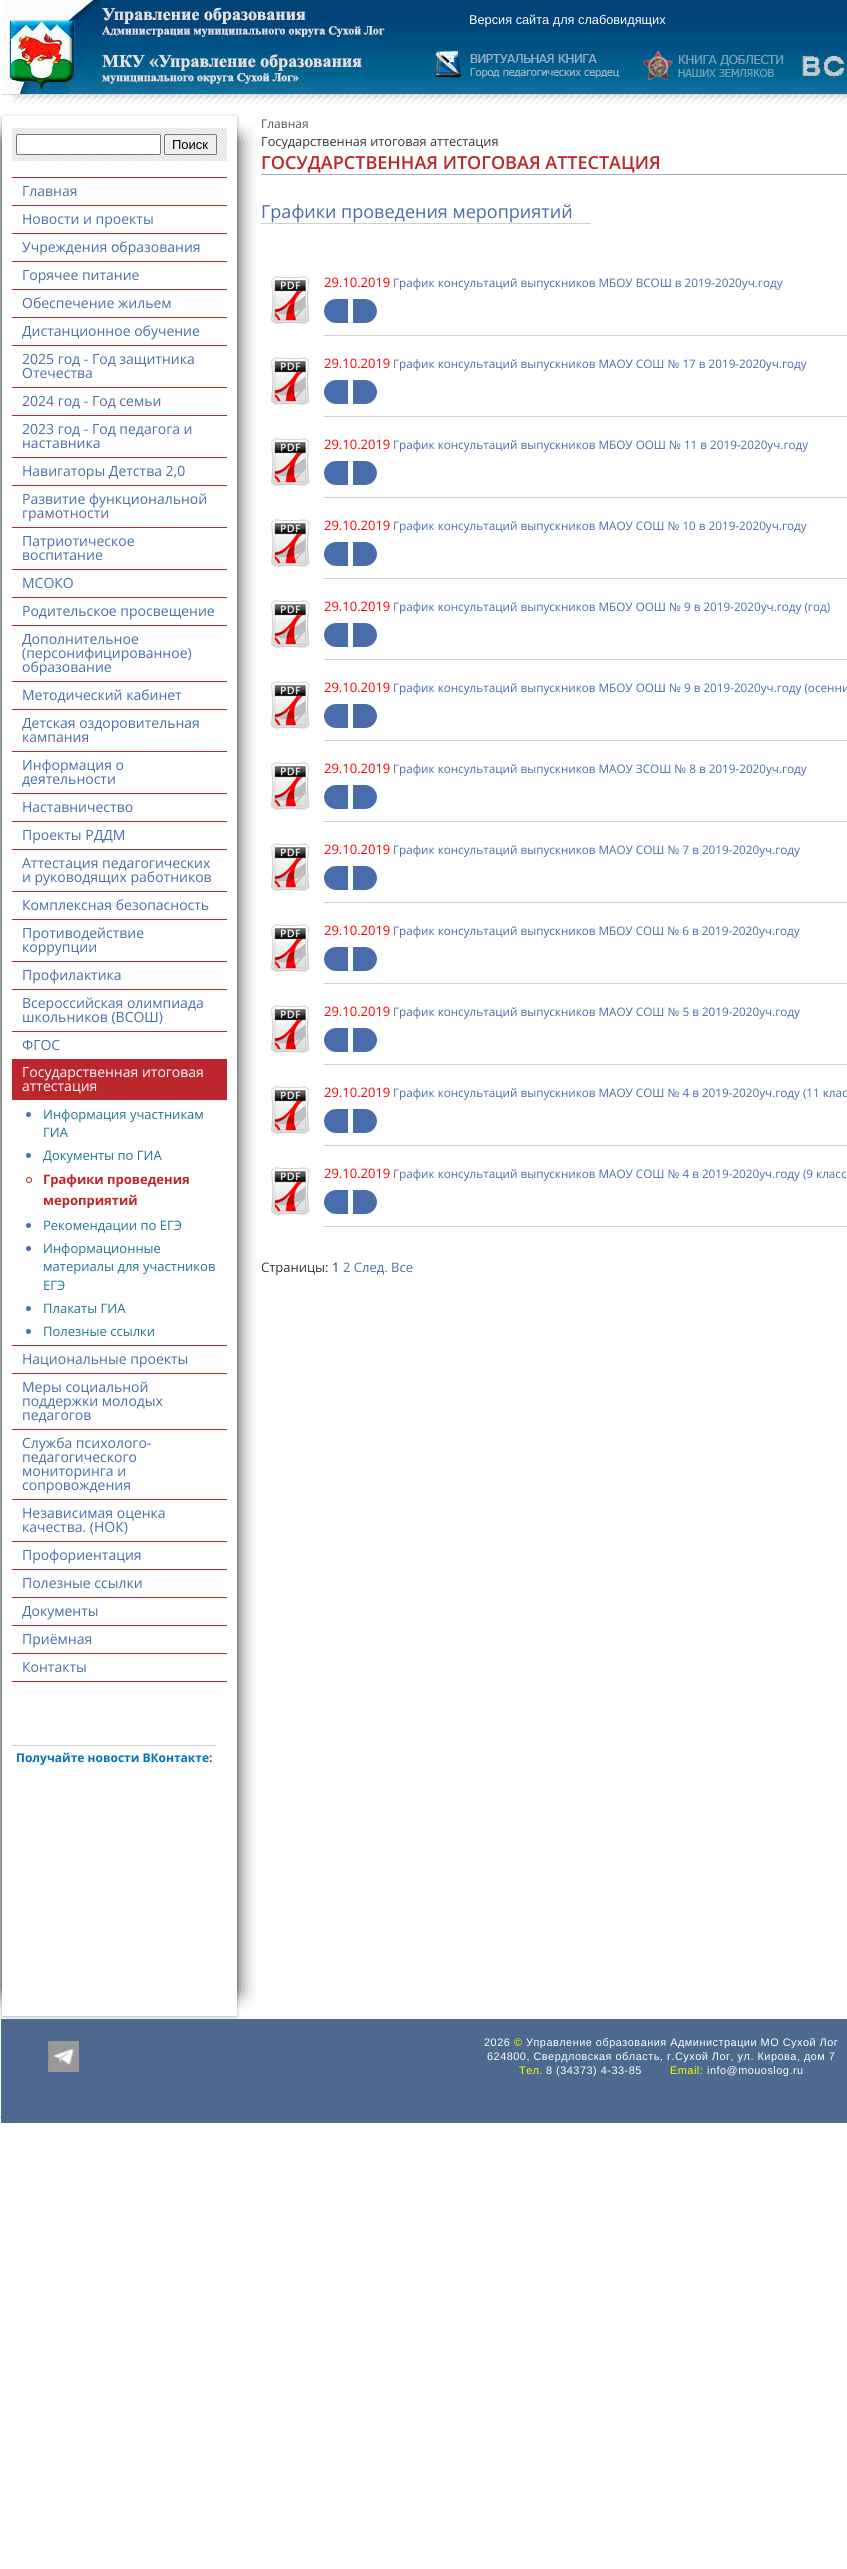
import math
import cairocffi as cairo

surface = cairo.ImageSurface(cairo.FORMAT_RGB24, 847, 2569)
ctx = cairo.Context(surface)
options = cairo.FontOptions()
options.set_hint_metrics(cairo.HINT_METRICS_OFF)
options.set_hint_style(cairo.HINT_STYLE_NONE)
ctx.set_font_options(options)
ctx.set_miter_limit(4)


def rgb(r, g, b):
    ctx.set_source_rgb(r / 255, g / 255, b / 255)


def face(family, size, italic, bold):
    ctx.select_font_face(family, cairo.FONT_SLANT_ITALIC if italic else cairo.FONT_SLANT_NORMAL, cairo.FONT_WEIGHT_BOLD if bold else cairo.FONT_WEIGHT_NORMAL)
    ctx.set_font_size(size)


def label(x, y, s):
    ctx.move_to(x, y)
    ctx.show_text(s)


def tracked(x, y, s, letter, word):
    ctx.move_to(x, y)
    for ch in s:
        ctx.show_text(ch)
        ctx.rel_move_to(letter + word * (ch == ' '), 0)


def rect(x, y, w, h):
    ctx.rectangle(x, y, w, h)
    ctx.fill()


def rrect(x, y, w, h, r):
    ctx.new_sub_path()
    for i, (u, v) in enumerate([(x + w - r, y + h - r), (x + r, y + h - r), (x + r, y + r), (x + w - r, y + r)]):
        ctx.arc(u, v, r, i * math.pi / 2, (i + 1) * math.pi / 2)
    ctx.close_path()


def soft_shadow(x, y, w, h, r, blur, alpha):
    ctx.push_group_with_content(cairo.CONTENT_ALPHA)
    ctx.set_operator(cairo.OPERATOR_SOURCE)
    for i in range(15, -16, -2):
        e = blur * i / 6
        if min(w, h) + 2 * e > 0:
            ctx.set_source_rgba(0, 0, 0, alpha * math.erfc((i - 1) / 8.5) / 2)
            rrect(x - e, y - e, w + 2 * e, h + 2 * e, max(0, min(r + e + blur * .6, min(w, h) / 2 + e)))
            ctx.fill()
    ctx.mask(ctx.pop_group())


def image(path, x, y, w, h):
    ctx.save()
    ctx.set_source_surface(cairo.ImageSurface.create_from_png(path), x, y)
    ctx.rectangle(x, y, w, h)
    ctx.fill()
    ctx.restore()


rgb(255, 255, 255)
ctx.paint()
ctx.save()
ctx.rectangle(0, 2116, 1, 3)
ctx.clip()
rgb(0, 0, 0)
soft_shadow(0, -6, 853, 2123, 0, 2, 0.3)
ctx.restore()
image('image0.png', 386, 0, 461, 94)
rgb(214, 214, 214)
rect(2, 94, 845, 1)
image('image1.png', 2, 0, 384, 94)
face('Liberation Sans', 12.75, 0, 0)
rgb(255, 255, 255)
label(469, 24, 'Версия сайта для слабовидящих')
image('image2.png', 434, 50, 185, 28)
image('image3.png', 643, 51, 141, 29)
image('image4.png', 802, 55, 43, 23)
image('image5.png', 13, 95, 834, 10)
ctx.save()
ctx.rectangle(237, 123, 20, 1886)
ctx.clip()
rgb(0, 0, 0)
soft_shadow(48, 139, 189, 1854, 0, 10, 0.8)
ctx.restore()
ctx.save()
ctx.rectangle(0, 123, 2, 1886)
ctx.clip()
rgb(0, 0, 0)
soft_shadow(2, 139, 189, 1854, 0, 10, 0.8)
ctx.restore()
ctx.save()
ctx.set_fill_rule(cairo.FILL_RULE_EVEN_ODD)
ctx.new_path()
ctx.move_to(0, 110)
ctx.line_to(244, 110)
ctx.line_to(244, 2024)
ctx.line_to(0, 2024)
ctx.close_path()
ctx.move_to(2, 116)
ctx.line_to(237, 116)
ctx.line_to(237, 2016)
ctx.line_to(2, 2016)
ctx.close_path()
ctx.clip()
rgb(0, 0, 0)
soft_shadow(2, 117, 235, 1900, 0, 2, 0.3)
ctx.restore()
image('image6.png', 12, 128, 215, 33)
rrect(16.5, 134.5, 144, 20, 1.5)
ctx.fill_preserve()
rgb(118, 118, 118)
ctx.set_line_width(1)
ctx.stroke()
rgb(239, 239, 239)
rrect(164.5, 134.5, 52, 20, 1.5)
ctx.fill_preserve()
rgb(118, 118, 118)
ctx.stroke()
face('Liberation Sans', 13, 0, 0)
rgb(0, 0, 0)
label(172, 149, 'Поиск')
rgb(188, 38, 44)
rect(12, 177, 215, 1)
face('Open Sans', 14, 0, 0)
rgb(72, 109, 170)
label(22, 196, 'Главная')
rgb(188, 38, 44)
rect(12, 205, 215, 1)
rgb(72, 109, 170)
label(22, 224, 'Новости и проекты')
rgb(188, 38, 44)
rect(12, 233, 215, 1)
rgb(72, 109, 170)
label(22, 252, 'Учреждения образования')
rgb(188, 38, 44)
rect(12, 261, 215, 1)
rgb(72, 109, 170)
label(22, 280, 'Горячее питание')
rgb(188, 38, 44)
rect(12, 289, 215, 1)
rgb(72, 109, 170)
label(22, 308, 'Обеспечение жильем')
rgb(188, 38, 44)
rect(12, 317, 215, 1)
rgb(72, 109, 170)
label(22, 336, 'Дистанционное обучение')
rgb(188, 38, 44)
rect(12, 345, 215, 1)
rgb(72, 109, 170)
label(22, 364, '2025 год - Год защитника')
label(22, 378, 'Отечества')
rgb(188, 38, 44)
rect(12, 387, 215, 1)
rgb(72, 109, 170)
label(22, 406, '2024 год - Год семьи')
rgb(188, 38, 44)
rect(12, 415, 215, 1)
rgb(72, 109, 170)
label(22, 434, '2023 год - Год педагога и')
label(22, 448, 'наставника')
rgb(188, 38, 44)
rect(12, 457, 215, 1)
rgb(72, 109, 170)
label(22, 476, 'Навигаторы Детства 2,0')
rgb(188, 38, 44)
rect(12, 485, 215, 1)
rgb(72, 109, 170)
label(22, 504, 'Развитие функциональной')
label(22, 518, 'грамотности')
rgb(188, 38, 44)
rect(12, 527, 215, 1)
rgb(72, 109, 170)
label(22, 546, 'Патриотическое')
label(22, 560, 'воспитание')
rgb(188, 38, 44)
rect(12, 569, 215, 1)
rgb(72, 109, 170)
label(22, 588, 'МСОКО')
rgb(188, 38, 44)
rect(12, 597, 215, 1)
rgb(72, 109, 170)
label(22, 616, 'Родительское просвещение')
rgb(188, 38, 44)
rect(12, 625, 215, 1)
rgb(72, 109, 170)
label(22, 644, 'Дополнительное')
label(22, 658, '(персонифицированное)')
label(22, 672, 'образование')
rgb(188, 38, 44)
rect(12, 681, 215, 1)
rgb(72, 109, 170)
label(22, 700, 'Методический кабинет')
rgb(188, 38, 44)
rect(12, 709, 215, 1)
rgb(72, 109, 170)
label(22, 728, 'Детская оздоровительная')
label(22, 742, 'кампания')
rgb(188, 38, 44)
rect(12, 751, 215, 1)
rgb(72, 109, 170)
label(22, 770, 'Информация о')
label(22, 784, 'деятельности')
rgb(188, 38, 44)
rect(12, 793, 215, 1)
rgb(72, 109, 170)
label(22, 812, 'Наставничество')
rgb(188, 38, 44)
rect(12, 821, 215, 1)
rgb(72, 109, 170)
label(22, 840, 'Проекты РДДМ')
rgb(188, 38, 44)
rect(12, 849, 215, 1)
rgb(72, 109, 170)
label(22, 868, 'Аттестация педагогических')
label(22, 882, 'и руководящих работников')
rgb(188, 38, 44)
rect(12, 891, 215, 1)
rgb(72, 109, 170)
label(22, 910, 'Комплексная безопасность')
rgb(188, 38, 44)
rect(12, 919, 215, 1)
rgb(72, 109, 170)
label(22, 938, 'Противодействие')
label(22, 952, 'коррупции')
rgb(188, 38, 44)
rect(12, 961, 215, 1)
rgb(72, 109, 170)
label(22, 980, 'Профилактика')
rgb(188, 38, 44)
rect(12, 989, 215, 1)
rgb(72, 109, 170)
label(22, 1008, 'Всероссийская олимпиада')
label(22, 1022, 'школьников (ВСОШ)')
rgb(188, 38, 44)
rect(12, 1031, 215, 1)
rgb(72, 109, 170)
label(22, 1050, 'ФГОС')
rgb(188, 38, 44)
rect(12, 1059, 215, 41)
rgb(255, 255, 255)
label(22, 1077, 'Государственная итоговая')
label(22, 1091, 'аттестация')
rgb(72, 109, 170)
ctx.new_path()
ctx.arc(28.5, 1114.5, 2.5, 0, 2 * math.pi)
ctx.fill()
face('Open Sans', 13, 0, 0)
rgb(32, 116, 146)
label(43, 1119, 'Информация участникам')
label(43, 1137, 'ГИА')
rgb(72, 109, 170)
ctx.new_path()
ctx.arc(28.5, 1155.5, 2.5, 0, 2 * math.pi)
ctx.fill()
rgb(32, 116, 146)
label(43, 1160, 'Документы по ГИА')
ctx.new_path()
ctx.arc(29, 1180, 2.5, 0, 2 * math.pi)
rgb(188, 38, 44)
ctx.stroke()
face('Open Sans', 13, 0, 1)
label(43, 1184, 'Графики проведения')
label(43, 1205, 'мероприятий')
rgb(72, 109, 170)
ctx.new_path()
ctx.arc(28.5, 1225.5, 2.5, 0, 2 * math.pi)
ctx.fill()
face('Open Sans', 13, 0, 0)
rgb(32, 116, 146)
label(43, 1230, 'Рекомендации по ЕГЭ')
rgb(72, 109, 170)
ctx.new_path()
ctx.arc(28.5, 1248.5, 2.5, 0, 2 * math.pi)
ctx.fill()
rgb(32, 116, 146)
label(43, 1253, 'Информационные')
label(43, 1271, 'материалы для участников')
label(43, 1290, 'ЕГЭ')
rgb(72, 109, 170)
ctx.new_path()
ctx.arc(28.5, 1308.5, 2.5, 0, 2 * math.pi)
ctx.fill()
rgb(32, 116, 146)
label(43, 1313, 'Плакаты ГИА')
rgb(72, 109, 170)
ctx.new_path()
ctx.arc(28.5, 1331.5, 2.5, 0, 2 * math.pi)
ctx.fill()
rgb(32, 116, 146)
label(43, 1336, 'Полезные ссылки')
rgb(188, 38, 44)
rect(12, 1345, 215, 1)
face('Open Sans', 14, 0, 0)
rgb(72, 109, 170)
label(22, 1364, 'Национальные проекты')
rgb(188, 38, 44)
rect(12, 1373, 215, 1)
rgb(72, 109, 170)
label(22, 1392, 'Меры социальной')
label(22, 1406, 'поддержки молодых')
label(22, 1420, 'педагогов')
rgb(188, 38, 44)
rect(12, 1429, 215, 1)
rgb(72, 109, 170)
label(22, 1448, 'Служба психолого-')
label(22, 1462, 'педагогического')
label(22, 1476, 'мониторинга и')
label(22, 1490, 'сопровождения')
rgb(188, 38, 44)
rect(12, 1499, 215, 1)
rgb(72, 109, 170)
label(22, 1518, 'Независимая оценка')
label(22, 1532, 'качества. (НОК)')
rgb(188, 38, 44)
rect(12, 1541, 215, 1)
rgb(72, 109, 170)
label(22, 1560, 'Профориентация')
rgb(188, 38, 44)
rect(12, 1569, 215, 1)
rgb(72, 109, 170)
label(22, 1588, 'Полезные ссылки')
rgb(188, 38, 44)
rect(12, 1597, 215, 1)
rgb(72, 109, 170)
label(22, 1616, 'Документы')
rgb(188, 38, 44)
rect(12, 1625, 215, 1)
rgb(72, 109, 170)
label(22, 1644, 'Приёмная')
rgb(188, 38, 44)
rect(12, 1653, 215, 1)
rgb(72, 109, 170)
label(22, 1672, 'Контакты')
rgb(188, 38, 44)
rect(12, 1681, 215, 1)
rgb(209, 208, 208)
rect(12, 1745, 204, 1)
face('Open Sans', 12, 0, 1)
rgb(0, 114, 188)
label(16, 1762, 'Получайте новости ВКонтакте:')
face('Open Sans', 12, 0, 0)
rgb(83, 83, 83)
label(261, 128, 'Главная')
face('Open Sans', 12.75, 0, 0)
rgb(51, 51, 51)
label(261, 146, 'Государственная итоговая аттестация')
face('Open Sans SemiBold', 18, 0, 0)
rgb(188, 38, 44)
label(261, 169, 'ГОСУДАРСТВЕННАЯ ИТОГОВАЯ АТТЕСТАЦИЯ')
rgb(160, 173, 194)
rect(261, 174, 586, 1)
face('Open Sans', 18, 0, 0)
rgb(72, 109, 170)
label(261, 218, 'Графики проведения мероприятий')
rgb(209, 208, 208)
rect(261, 223, 330, 1)
image('image7.png', 271, 276, 39, 48)
face('Open Sans', 13, 0, 0)
rgb(255, 0, 0)
label(324, 287, '29.10.2019')
face('Open Sans', 11.7, 0, 0)
rgb(72, 109, 170)
label(393, 287, 'График консультаций выпускников МБОУ ВСОШ в 2019-2020уч.году')
ctx.new_path()
ctx.move_to(336, 299)
ctx.line_to(348, 299)
ctx.line_to(348, 323)
ctx.line_to(336, 323)
ctx.curve_to(329.5, 323, 324, 317.5, 324, 311)
ctx.curve_to(324, 304.5, 329.5, 299, 336, 299)
ctx.close_path()
ctx.fill()
ctx.new_path()
ctx.move_to(353, 299)
ctx.line_to(365, 299)
ctx.curve_to(371.5, 299, 377, 304.5, 377, 311)
ctx.curve_to(377, 317.5, 371.5, 323, 365, 323)
ctx.line_to(353, 323)
ctx.close_path()
ctx.fill()
rgb(209, 208, 208)
rect(324, 335, 523, 1)
image('image7.png', 271, 357, 39, 48)
face('Open Sans', 13, 0, 0)
rgb(255, 0, 0)
label(324, 368, '29.10.2019')
face('Open Sans', 11.7, 0, 0)
rgb(72, 109, 170)
label(393, 368, 'График консультаций выпускников МАОУ СОШ № 17 в 2019-2020уч.году')
ctx.new_path()
ctx.move_to(336, 380)
ctx.line_to(348, 380)
ctx.line_to(348, 404)
ctx.line_to(336, 404)
ctx.curve_to(329.5, 404, 324, 398.5, 324, 392)
ctx.curve_to(324, 385.5, 329.5, 380, 336, 380)
ctx.close_path()
ctx.fill()
ctx.new_path()
ctx.move_to(353, 380)
ctx.line_to(365, 380)
ctx.curve_to(371.5, 380, 377, 385.5, 377, 392)
ctx.curve_to(377, 398.5, 371.5, 404, 365, 404)
ctx.line_to(353, 404)
ctx.close_path()
ctx.fill()
rgb(209, 208, 208)
rect(324, 416, 523, 1)
image('image7.png', 271, 438, 39, 48)
face('Open Sans', 13, 0, 0)
rgb(255, 0, 0)
label(324, 449, '29.10.2019')
face('Open Sans', 11.7, 0, 0)
rgb(72, 109, 170)
label(393, 449, 'График консультаций выпускников МБОУ ООШ № 11 в 2019-2020уч.году')
ctx.new_path()
ctx.move_to(336, 461)
ctx.line_to(348, 461)
ctx.line_to(348, 485)
ctx.line_to(336, 485)
ctx.curve_to(329.5, 485, 324, 479.5, 324, 473)
ctx.curve_to(324, 466.5, 329.5, 461, 336, 461)
ctx.close_path()
ctx.fill()
ctx.new_path()
ctx.move_to(353, 461)
ctx.line_to(365, 461)
ctx.curve_to(371.5, 461, 377, 466.5, 377, 473)
ctx.curve_to(377, 479.5, 371.5, 485, 365, 485)
ctx.line_to(353, 485)
ctx.close_path()
ctx.fill()
rgb(209, 208, 208)
rect(324, 497, 523, 1)
image('image7.png', 271, 519, 39, 48)
face('Open Sans', 13, 0, 0)
rgb(255, 0, 0)
label(324, 530, '29.10.2019')
face('Open Sans', 11.7, 0, 0)
rgb(72, 109, 170)
label(393, 530, 'График консультаций выпускников МАОУ СОШ № 10 в 2019-2020уч.году')
ctx.new_path()
ctx.move_to(336, 542)
ctx.line_to(348, 542)
ctx.line_to(348, 566)
ctx.line_to(336, 566)
ctx.curve_to(329.5, 566, 324, 560.5, 324, 554)
ctx.curve_to(324, 547.5, 329.5, 542, 336, 542)
ctx.close_path()
ctx.fill()
ctx.new_path()
ctx.move_to(353, 542)
ctx.line_to(365, 542)
ctx.curve_to(371.5, 542, 377, 547.5, 377, 554)
ctx.curve_to(377, 560.5, 371.5, 566, 365, 566)
ctx.line_to(353, 566)
ctx.close_path()
ctx.fill()
rgb(209, 208, 208)
rect(324, 578, 523, 1)
image('image7.png', 271, 600, 39, 48)
face('Open Sans', 13, 0, 0)
rgb(255, 0, 0)
label(324, 611, '29.10.2019')
face('Open Sans', 11.7, 0, 0)
rgb(72, 109, 170)
label(393, 611, 'График консультаций выпускников МБОУ ООШ № 9 в 2019-2020уч.году (год)')
ctx.new_path()
ctx.move_to(336, 623)
ctx.line_to(348, 623)
ctx.line_to(348, 647)
ctx.line_to(336, 647)
ctx.curve_to(329.5, 647, 324, 641.5, 324, 635)
ctx.curve_to(324, 628.5, 329.5, 623, 336, 623)
ctx.close_path()
ctx.fill()
ctx.new_path()
ctx.move_to(353, 623)
ctx.line_to(365, 623)
ctx.curve_to(371.5, 623, 377, 628.5, 377, 635)
ctx.curve_to(377, 641.5, 371.5, 647, 365, 647)
ctx.line_to(353, 647)
ctx.close_path()
ctx.fill()
rgb(209, 208, 208)
rect(324, 659, 523, 1)
image('image7.png', 271, 681, 39, 48)
face('Open Sans', 13, 0, 0)
rgb(255, 0, 0)
label(324, 692, '29.10.2019')
face('Open Sans', 11.7, 0, 0)
rgb(72, 109, 170)
label(393, 692, 'График консультаций выпускников МБОУ ООШ № 9 в 2019-2020уч.году (осенни')
ctx.new_path()
ctx.move_to(336, 704)
ctx.line_to(348, 704)
ctx.line_to(348, 728)
ctx.line_to(336, 728)
ctx.curve_to(329.5, 728, 324, 722.5, 324, 716)
ctx.curve_to(324, 709.5, 329.5, 704, 336, 704)
ctx.close_path()
ctx.fill()
ctx.new_path()
ctx.move_to(353, 704)
ctx.line_to(365, 704)
ctx.curve_to(371.5, 704, 377, 709.5, 377, 716)
ctx.curve_to(377, 722.5, 371.5, 728, 365, 728)
ctx.line_to(353, 728)
ctx.close_path()
ctx.fill()
rgb(209, 208, 208)
rect(324, 740, 523, 1)
image('image7.png', 271, 762, 39, 48)
face('Open Sans', 13, 0, 0)
rgb(255, 0, 0)
label(324, 773, '29.10.2019')
face('Open Sans', 11.7, 0, 0)
rgb(72, 109, 170)
label(393, 773, 'График консультаций выпускников МАОУ ЗСОШ № 8 в 2019-2020уч.году')
ctx.new_path()
ctx.move_to(336, 785)
ctx.line_to(348, 785)
ctx.line_to(348, 809)
ctx.line_to(336, 809)
ctx.curve_to(329.5, 809, 324, 803.5, 324, 797)
ctx.curve_to(324, 790.5, 329.5, 785, 336, 785)
ctx.close_path()
ctx.fill()
ctx.new_path()
ctx.move_to(353, 785)
ctx.line_to(365, 785)
ctx.curve_to(371.5, 785, 377, 790.5, 377, 797)
ctx.curve_to(377, 803.5, 371.5, 809, 365, 809)
ctx.line_to(353, 809)
ctx.close_path()
ctx.fill()
rgb(209, 208, 208)
rect(324, 821, 523, 1)
image('image7.png', 271, 843, 39, 48)
face('Open Sans', 13, 0, 0)
rgb(255, 0, 0)
label(324, 854, '29.10.2019')
face('Open Sans', 11.7, 0, 0)
rgb(72, 109, 170)
label(393, 854, 'График консультаций выпускников МАОУ СОШ № 7 в 2019-2020уч.году')
ctx.new_path()
ctx.move_to(336, 866)
ctx.line_to(348, 866)
ctx.line_to(348, 890)
ctx.line_to(336, 890)
ctx.curve_to(329.5, 890, 324, 884.5, 324, 878)
ctx.curve_to(324, 871.5, 329.5, 866, 336, 866)
ctx.close_path()
ctx.fill()
ctx.new_path()
ctx.move_to(353, 866)
ctx.line_to(365, 866)
ctx.curve_to(371.5, 866, 377, 871.5, 377, 878)
ctx.curve_to(377, 884.5, 371.5, 890, 365, 890)
ctx.line_to(353, 890)
ctx.close_path()
ctx.fill()
rgb(209, 208, 208)
rect(324, 902, 523, 1)
image('image7.png', 271, 924, 39, 48)
face('Open Sans', 13, 0, 0)
rgb(255, 0, 0)
label(324, 935, '29.10.2019')
face('Open Sans', 11.7, 0, 0)
rgb(72, 109, 170)
label(393, 935, 'График консультаций выпускников МБОУ СОШ № 6 в 2019-2020уч.году')
ctx.new_path()
ctx.move_to(336, 947)
ctx.line_to(348, 947)
ctx.line_to(348, 971)
ctx.line_to(336, 971)
ctx.curve_to(329.5, 971, 324, 965.5, 324, 959)
ctx.curve_to(324, 952.5, 329.5, 947, 336, 947)
ctx.close_path()
ctx.fill()
ctx.new_path()
ctx.move_to(353, 947)
ctx.line_to(365, 947)
ctx.curve_to(371.5, 947, 377, 952.5, 377, 959)
ctx.curve_to(377, 965.5, 371.5, 971, 365, 971)
ctx.line_to(353, 971)
ctx.close_path()
ctx.fill()
rgb(209, 208, 208)
rect(324, 983, 523, 1)
image('image7.png', 271, 1005, 39, 48)
face('Open Sans', 13, 0, 0)
rgb(255, 0, 0)
label(324, 1016, '29.10.2019')
face('Open Sans', 11.7, 0, 0)
rgb(72, 109, 170)
label(393, 1016, 'График консультаций выпускников МАОУ СОШ № 5 в 2019-2020уч.году')
ctx.new_path()
ctx.move_to(336, 1028)
ctx.line_to(348, 1028)
ctx.line_to(348, 1052)
ctx.line_to(336, 1052)
ctx.curve_to(329.5, 1052, 324, 1046.5, 324, 1040)
ctx.curve_to(324, 1033.5, 329.5, 1028, 336, 1028)
ctx.close_path()
ctx.fill()
ctx.new_path()
ctx.move_to(353, 1028)
ctx.line_to(365, 1028)
ctx.curve_to(371.5, 1028, 377, 1033.5, 377, 1040)
ctx.curve_to(377, 1046.5, 371.5, 1052, 365, 1052)
ctx.line_to(353, 1052)
ctx.close_path()
ctx.fill()
rgb(209, 208, 208)
rect(324, 1064, 523, 1)
image('image7.png', 271, 1086, 39, 48)
face('Open Sans', 13, 0, 0)
rgb(255, 0, 0)
label(324, 1097, '29.10.2019')
face('Open Sans', 11.7, 0, 0)
rgb(72, 109, 170)
label(393, 1097, 'График консультаций выпускников МАОУ СОШ № 4 в 2019-2020уч.году (11 клас')
ctx.new_path()
ctx.move_to(336, 1109)
ctx.line_to(348, 1109)
ctx.line_to(348, 1133)
ctx.line_to(336, 1133)
ctx.curve_to(329.5, 1133, 324, 1127.5, 324, 1121)
ctx.curve_to(324, 1114.5, 329.5, 1109, 336, 1109)
ctx.close_path()
ctx.fill()
ctx.new_path()
ctx.move_to(353, 1109)
ctx.line_to(365, 1109)
ctx.curve_to(371.5, 1109, 377, 1114.5, 377, 1121)
ctx.curve_to(377, 1127.5, 371.5, 1133, 365, 1133)
ctx.line_to(353, 1133)
ctx.close_path()
ctx.fill()
rgb(209, 208, 208)
rect(324, 1145, 523, 1)
image('image7.png', 271, 1167, 39, 48)
face('Open Sans', 13, 0, 0)
rgb(255, 0, 0)
label(324, 1178, '29.10.2019')
face('Open Sans', 11.7, 0, 0)
rgb(72, 109, 170)
label(393, 1178, 'График консультаций выпускников МАОУ СОШ № 4 в 2019-2020уч.году (9 класс')
ctx.new_path()
ctx.move_to(336, 1190)
ctx.line_to(348, 1190)
ctx.line_to(348, 1214)
ctx.line_to(336, 1214)
ctx.curve_to(329.5, 1214, 324, 1208.5, 324, 1202)
ctx.curve_to(324, 1195.5, 329.5, 1190, 336, 1190)
ctx.close_path()
ctx.fill()
ctx.new_path()
ctx.move_to(353, 1190)
ctx.line_to(365, 1190)
ctx.curve_to(371.5, 1190, 377, 1195.5, 377, 1202)
ctx.curve_to(377, 1208.5, 371.5, 1214, 365, 1214)
ctx.line_to(353, 1214)
ctx.close_path()
ctx.fill()
rgb(209, 208, 208)
rect(324, 1226, 523, 1)
face('Open Sans', 13, 0, 0)
rgb(51, 51, 51)
label(261, 1272, 'Страницы: 1')
rgb(72, 109, 170)
label(343, 1272, '2 След. Все')
rgb(77, 105, 144)
rect(1, 2019, 846, 104)
image('image8.png', 48, 2041, 31, 31)
face('Liberation Sans', 10.9, 0, 0)
rgb(255, 255, 255)
tracked(484, 2046, '2026', 0.5, 0)
rgb(255, 255, 0)
tracked(514, 2046, '©', 0.5, 0)
rgb(255, 255, 255)
tracked(526, 2046, 'Управление образования Администрации МО Сухой Лог', 0.5, 0)
tracked(487, 2060, '624800, Свердловская область, г.Сухой Лог, ул. Кирова, дом 7', 0.5, 0)
rgb(255, 255, 0)
tracked(519, 2074, 'Tел.', 0.5, 0)
rgb(255, 255, 255)
tracked(546, 2074, '8 (34373) 4-33-85', 0.5, 0)
rgb(255, 255, 0)
tracked(670, 2074, 'Email:', 0.5, 0)
rgb(255, 255, 255)
tracked(707, 2074, 'info@mouoslog.ru', 0.5, 0)
surface.write_to_png('render.png')
